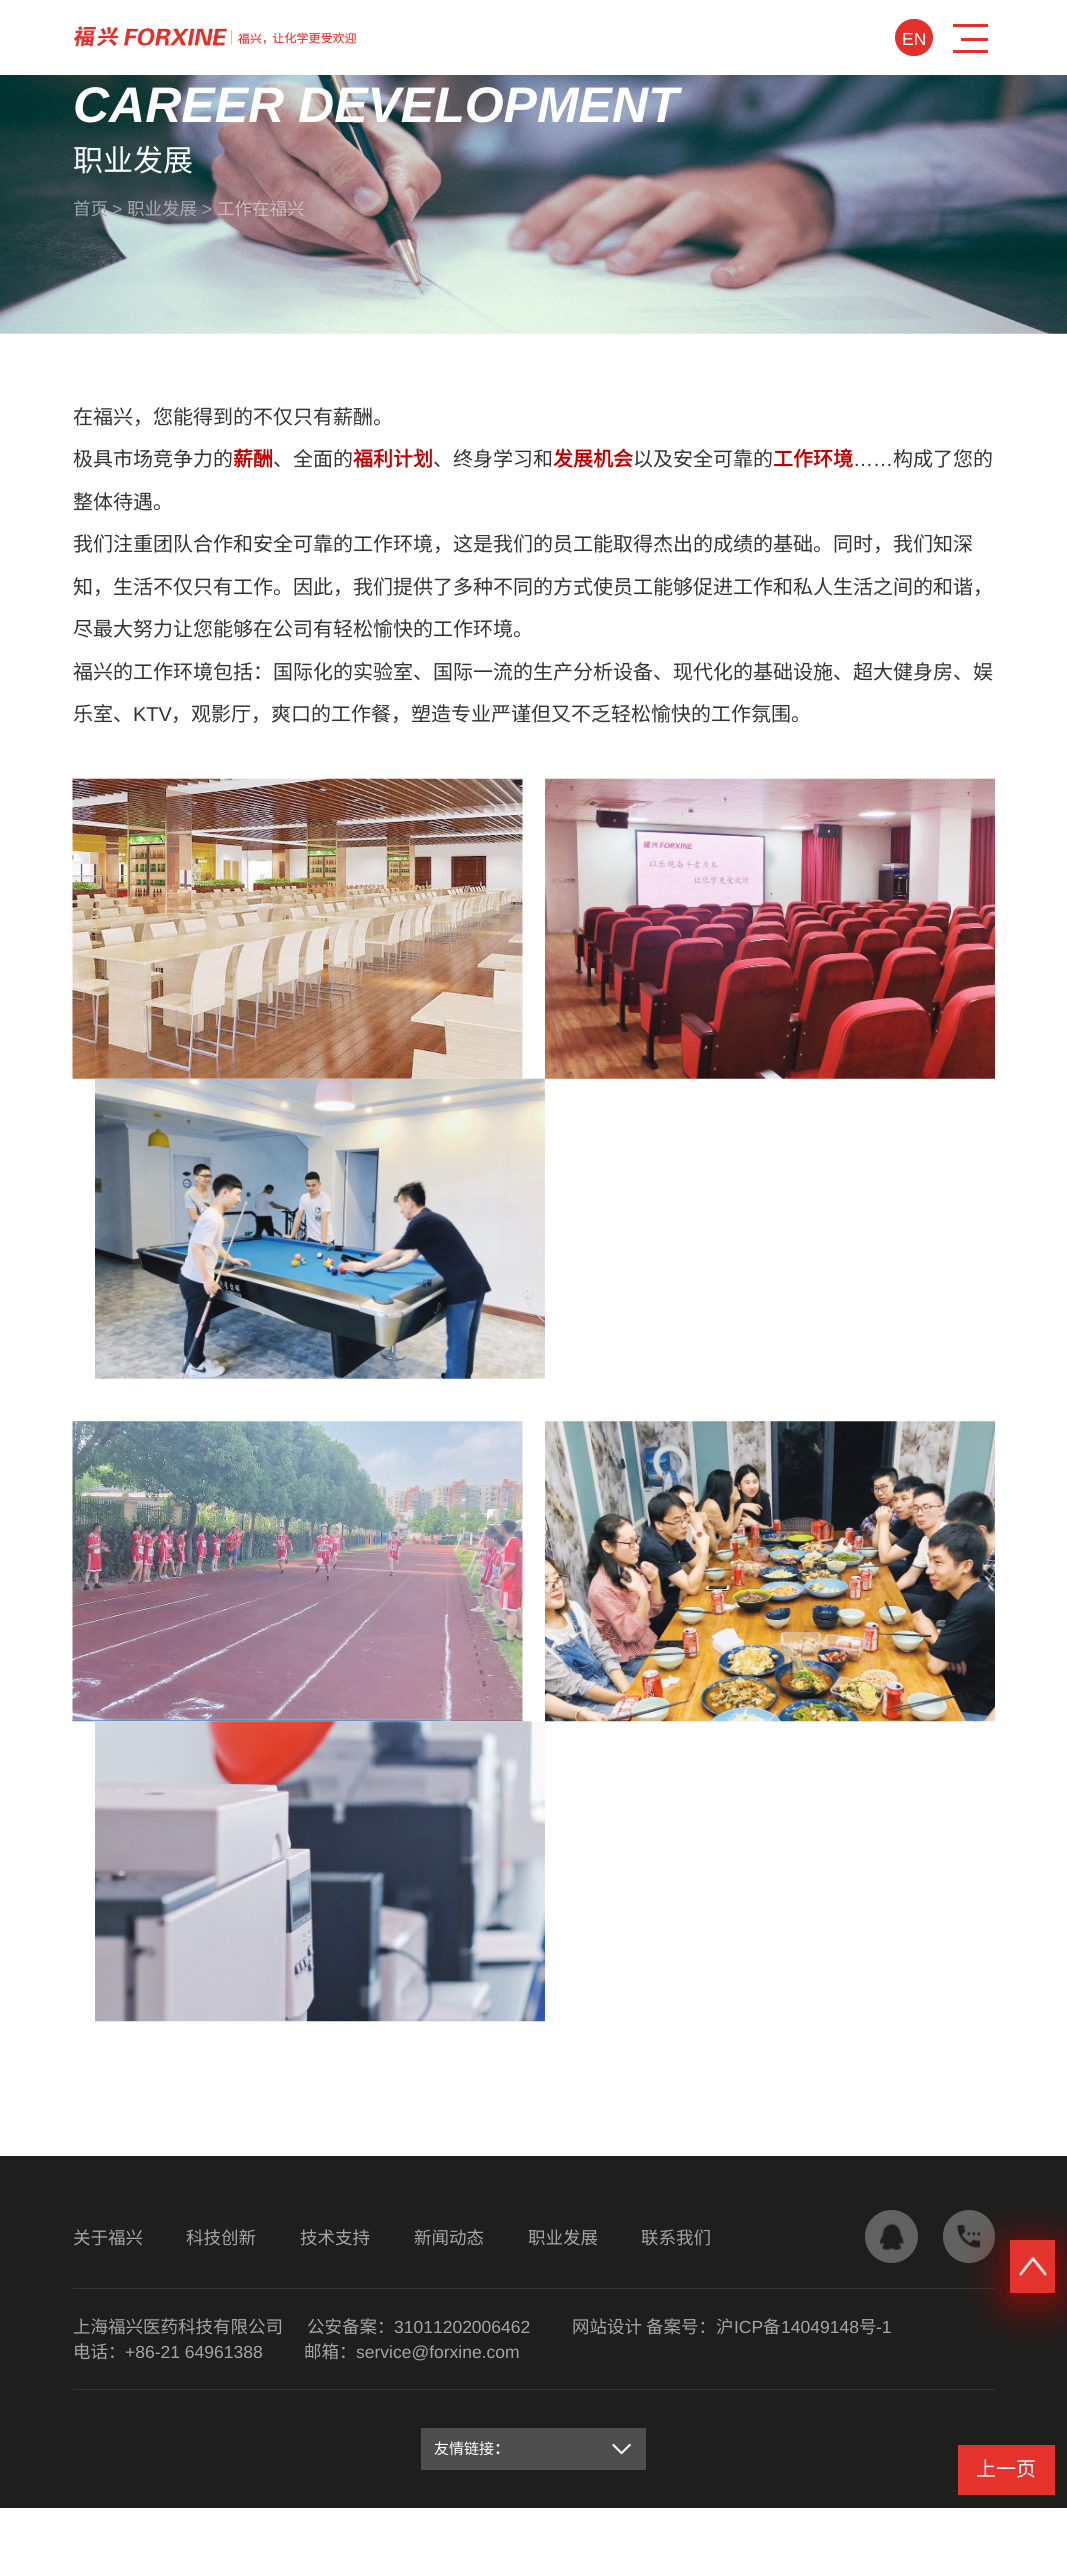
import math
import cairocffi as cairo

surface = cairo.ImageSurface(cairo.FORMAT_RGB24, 1067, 2567)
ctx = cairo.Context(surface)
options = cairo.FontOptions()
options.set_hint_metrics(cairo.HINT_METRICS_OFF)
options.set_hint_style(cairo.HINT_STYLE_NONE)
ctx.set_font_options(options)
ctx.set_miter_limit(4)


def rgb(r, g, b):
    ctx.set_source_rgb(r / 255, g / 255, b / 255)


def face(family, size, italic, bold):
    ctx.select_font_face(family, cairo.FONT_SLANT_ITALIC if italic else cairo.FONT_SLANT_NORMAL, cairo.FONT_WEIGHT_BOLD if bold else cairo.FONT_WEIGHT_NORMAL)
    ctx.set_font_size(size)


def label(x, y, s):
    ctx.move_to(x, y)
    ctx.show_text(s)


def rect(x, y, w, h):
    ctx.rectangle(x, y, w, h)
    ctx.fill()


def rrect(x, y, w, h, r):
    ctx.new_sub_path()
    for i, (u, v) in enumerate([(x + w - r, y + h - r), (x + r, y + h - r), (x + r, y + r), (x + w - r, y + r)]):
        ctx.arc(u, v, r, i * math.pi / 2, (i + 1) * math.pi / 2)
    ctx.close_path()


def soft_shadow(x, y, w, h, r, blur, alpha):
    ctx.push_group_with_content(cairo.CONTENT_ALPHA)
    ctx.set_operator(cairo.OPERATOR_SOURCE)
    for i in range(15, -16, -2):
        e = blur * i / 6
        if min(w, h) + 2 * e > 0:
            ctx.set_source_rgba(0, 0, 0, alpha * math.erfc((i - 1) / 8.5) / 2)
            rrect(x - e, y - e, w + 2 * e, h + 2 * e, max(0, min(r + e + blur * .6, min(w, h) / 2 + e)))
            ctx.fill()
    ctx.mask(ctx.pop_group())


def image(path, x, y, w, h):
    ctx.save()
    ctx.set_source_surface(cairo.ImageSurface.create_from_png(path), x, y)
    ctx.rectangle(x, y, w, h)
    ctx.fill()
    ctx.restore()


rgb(255, 255, 255)
ctx.paint()
image('image0.png', 74, 26, 282, 21)
rgb(228, 48, 42)
rrect(895.5, 19.5, 37, 36, 18)
ctx.fill_preserve()
ctx.set_line_width(1)
ctx.stroke()
face('Liberation Sans', 17.5, 0, 0)
rgb(255, 255, 255)
label(902, 45, 'EN')
rgb(228, 48, 42)
rect(961, 38, 27, 3)
rect(953, 24, 35, 3)
rect(953, 50, 35, 3)
image('image1.png', 0, 75, 1067, 259)
face('Liberation Sans', 50, 1, 1)
rgb(255, 255, 255)
label(73, 122, 'CAREER DEVELOPMENT')
face('Noto Sans CJK SC', 30, 0, 0)
label(73, 171, '职业发展')
face('Noto Sans CJK SC', 17.5, 0, 0)
rgb(156, 167, 169)
label(73, 215, '首页')
face('Liberation Sans', 17.5, 0, 0)
label(112, 215, '>')
face('Noto Sans CJK SC', 17.5, 0, 0)
rgb(167, 170, 176)
label(127, 215, '职业发展')
face('Liberation Sans', 17.5, 0, 0)
label(202, 215, '>')
face('Noto Sans CJK SC', 17.5, 0, 0)
rgb(207, 187, 190)
label(217, 215, '工作在福兴')
face('Noto Sans CJK SC', 20, 0, 0)
rgb(51, 51, 51)
label(73, 424, '在福兴，您能得到的不仅只有薪酬。')
label(73, 466, '极具市场竞争力的')
face('Noto Sans CJK SC', 20, 0, 1)
rgb(192, 0, 0)
label(233, 466, '薪酬')
face('Noto Sans CJK SC', 20, 0, 0)
rgb(51, 51, 51)
label(273, 466, '、全面的')
face('Noto Sans CJK SC', 20, 0, 1)
rgb(192, 0, 0)
label(353, 466, '福利计划')
face('Noto Sans CJK SC', 20, 0, 0)
rgb(51, 51, 51)
label(433, 466, '、终身学习和')
face('Noto Sans CJK SC', 20, 0, 1)
rgb(192, 0, 0)
label(553, 466, '发展机会')
face('Noto Sans CJK SC', 20, 0, 0)
rgb(51, 51, 51)
label(633, 466, '以及安全可靠的')
face('Noto Sans CJK SC', 20, 0, 1)
rgb(192, 0, 0)
label(773, 466, '工作环境')
face('Liberation Sans', 20, 0, 0)
rgb(51, 51, 51)
label(853, 466, '……')
face('Noto Sans CJK SC', 20, 0, 0)
label(893, 466, '构成了您的')
label(73, 509, '整体待遇。')
label(73, 551, '我们注重团队合作和安全可靠的工作环境，这是我们的员工能取得杰出的成绩的基础。同时，我们知深')
label(73, 594, '知，生活不仅只有工作。因此，我们提供了多种不同的方式使员工能够促进工作和私人生活之间的和谐，')
label(73, 636, '尽最大努力让您能够在公司有轻松愉快的工作环境。')
label(73, 679, '福兴的工作环境包括：国际化的实验室、国际一流的生产分析设备、现代化的基础设施、超大健身房、娱')
label(73, 721, '乐室、')
face('Liberation Sans', 20, 0, 0)
label(133, 721, 'KTV')
face('Noto Sans CJK SC', 20, 0, 0)
label(171, 721, '，观影厅，爽口的工作餐，塑造专业严谨但又不乏轻松愉快的工作氛围。')
image('image2.png', 72, 778, 451, 301)
image('image3.png', 545, 778, 450, 301)
image('image4.png', 95, 1078, 450, 301)
image('image5.png', 72, 1421, 451, 301)
image('image6.png', 545, 1421, 450, 301)
image('image7.png', 95, 1721, 450, 301)
rgb(30, 30, 30)
rect(0, 2156, 1067, 352)
rgb(98, 98, 98)
rrect(943, 2210, 52, 53, 26)
ctx.fill()
image('image10.png', 957, 2224, 24, 24)
rgb(53, 53, 53)
rect(73, 2288, 922, 1)
rgb(161, 5, 0)
soft_shadow(1010, 2249, 45, 52, 0, 22.5, 1)
rgb(228, 50, 44)
rect(1010, 2240, 45, 53)
image('image8.png', 1019, 2257, 28, 19)
face('Noto Sans CJK SC', 17.5, 0, 0)
rgb(165, 165, 165)
label(73, 2244, '关于福兴')
label(186, 2244, '科技创新')
label(300, 2244, '技术支持')
label(414, 2244, '新闻动态')
label(528, 2244, '职业发展')
label(641, 2244, '联系我们')
rgb(98, 98, 98)
ctx.new_path()
ctx.arc(891.5, 2236.5, 26.5, 0, 2 * math.pi)
ctx.fill()
image('image9.png', 879, 2223, 25, 28)
rgb(53, 53, 53)
rect(73, 2389, 922, 1)
rgb(165, 165, 165)
label(73, 2333, '上海福兴医药科技有限公司')
label(307, 2333, '公安备案：')
face('Liberation Sans', 17.5, 0, 0)
label(394, 2333, '31011202006462')
face('Noto Sans CJK SC', 17.5, 0, 0)
label(572, 2333, '网站设计')
label(646, 2333, '备案号：沪')
face('Liberation Sans', 17.5, 0, 0)
label(734, 2333, 'ICP')
face('Noto Sans CJK SC', 17.5, 0, 0)
label(763, 2333, '备')
face('Liberation Sans', 17.5, 0, 0)
label(781, 2333, '14049148')
face('Noto Sans CJK SC', 17.5, 0, 0)
label(859, 2333, '号')
face('Liberation Sans', 17.5, 0, 0)
label(876, 2333, '-1')
face('Noto Sans CJK SC', 17.5, 0, 0)
label(73, 2358, '电话：')
face('Liberation Sans', 17.5, 0, 0)
label(125, 2358, '+86-21 64961388')
face('Noto Sans CJK SC', 17.5, 0, 0)
label(304, 2358, '邮箱：')
face('Liberation Sans', 17.5, 0, 0)
label(356, 2358, 'service@forxine.com')
rgb(78, 78, 78)
rect(421, 2428, 225, 42)
face('Noto Sans CJK SC', 15, 0, 0)
rgb(255, 255, 255)
label(434, 2454, '友情链接')
face('Noto Sans CJK SC', 15, 0, 1)
label(494, 2454, '：')
image('image11.png', 612, 2443, 19, 12)
rgb(228, 50, 44)
rect(958, 2445, 97, 50)
face('Noto Sans CJK SC', 20, 0, 0)
rgb(255, 255, 255)
label(976, 2476, '上一页')
surface.write_to_png('render.png')
